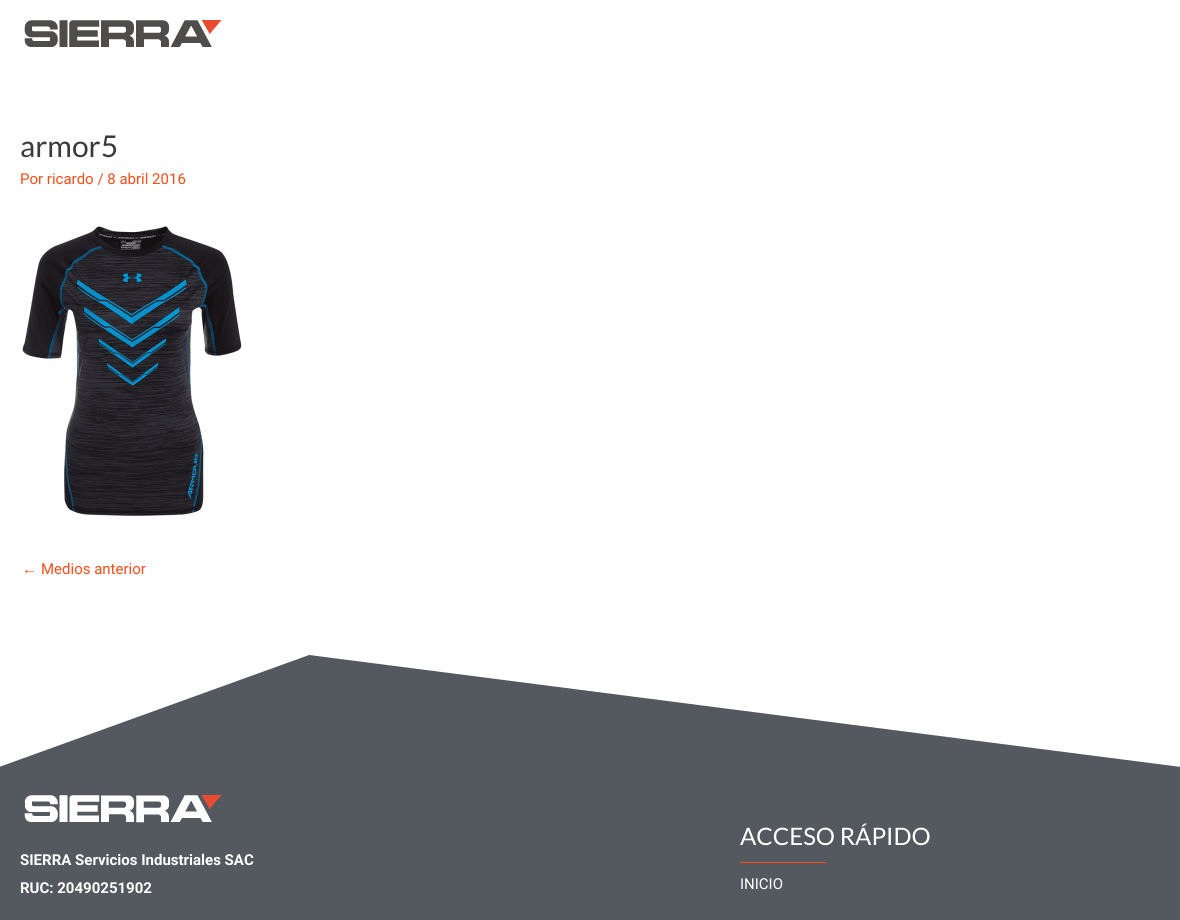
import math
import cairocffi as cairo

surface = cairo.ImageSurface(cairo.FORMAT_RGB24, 1180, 920)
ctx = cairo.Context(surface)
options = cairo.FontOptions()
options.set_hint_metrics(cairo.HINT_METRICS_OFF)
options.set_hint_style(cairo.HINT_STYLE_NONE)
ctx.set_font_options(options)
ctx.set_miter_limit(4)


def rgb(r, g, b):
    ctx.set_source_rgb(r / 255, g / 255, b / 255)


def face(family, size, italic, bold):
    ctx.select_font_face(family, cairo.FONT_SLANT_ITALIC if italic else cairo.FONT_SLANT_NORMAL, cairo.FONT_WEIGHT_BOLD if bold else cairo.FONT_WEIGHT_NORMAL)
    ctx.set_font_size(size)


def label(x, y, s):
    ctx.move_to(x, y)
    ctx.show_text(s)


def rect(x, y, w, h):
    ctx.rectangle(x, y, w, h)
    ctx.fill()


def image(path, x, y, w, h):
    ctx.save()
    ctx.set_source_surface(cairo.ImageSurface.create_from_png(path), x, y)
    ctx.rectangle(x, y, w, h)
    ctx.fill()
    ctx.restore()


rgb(255, 255, 255)
ctx.paint()
image('image0.png', 24, 20, 198, 27)
face('Lato', 30, 0, 0)
rgb(58, 58, 58)
label(20, 157, 'armor5')
face('Roboto', 15, 0, 0)
rgb(255, 76, 24)
label(20, 184, 'Por ricardo / 8 abril 2016')
image('image1.png', 22, 226, 220, 290)
face('Liberation Sans', 15, 0, 0)
label(22, 574, '←')
face('Roboto', 15, 0, 0)
label(41, 574, 'Medios anterior')
rgb(84, 89, 95)
rect(0, 655, 1180, 265)
ctx.save()
ctx.rectangle(0, 649, 1180, 118)
ctx.clip()
rgb(255, 255, 255)
ctx.new_path()
ctx.move_to(309, 655)
ctx.line_to(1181, 767)
ctx.line_to(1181, 648)
ctx.line_to(-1, 648)
ctx.line_to(-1, 767)
ctx.close_path()
ctx.fill()
ctx.restore()
image('image2.png', 24, 795, 198, 28)
face('Roboto', 15, 0, 1)
rgb(255, 255, 255)
label(20, 865, 'SIERRA Servicios Industriales SAC')
label(20, 893, 'RUC: 20490251902')
face('Lato', 24, 0, 0)
label(740, 845, 'ACCESO RÁPIDO')
rgb(255, 76, 24)
rect(740, 862, 86, 1)
face('Roboto', 15, 0, 0)
rgb(255, 255, 255)
label(740, 889, 'INICIO')
surface.write_to_png('render.png')
